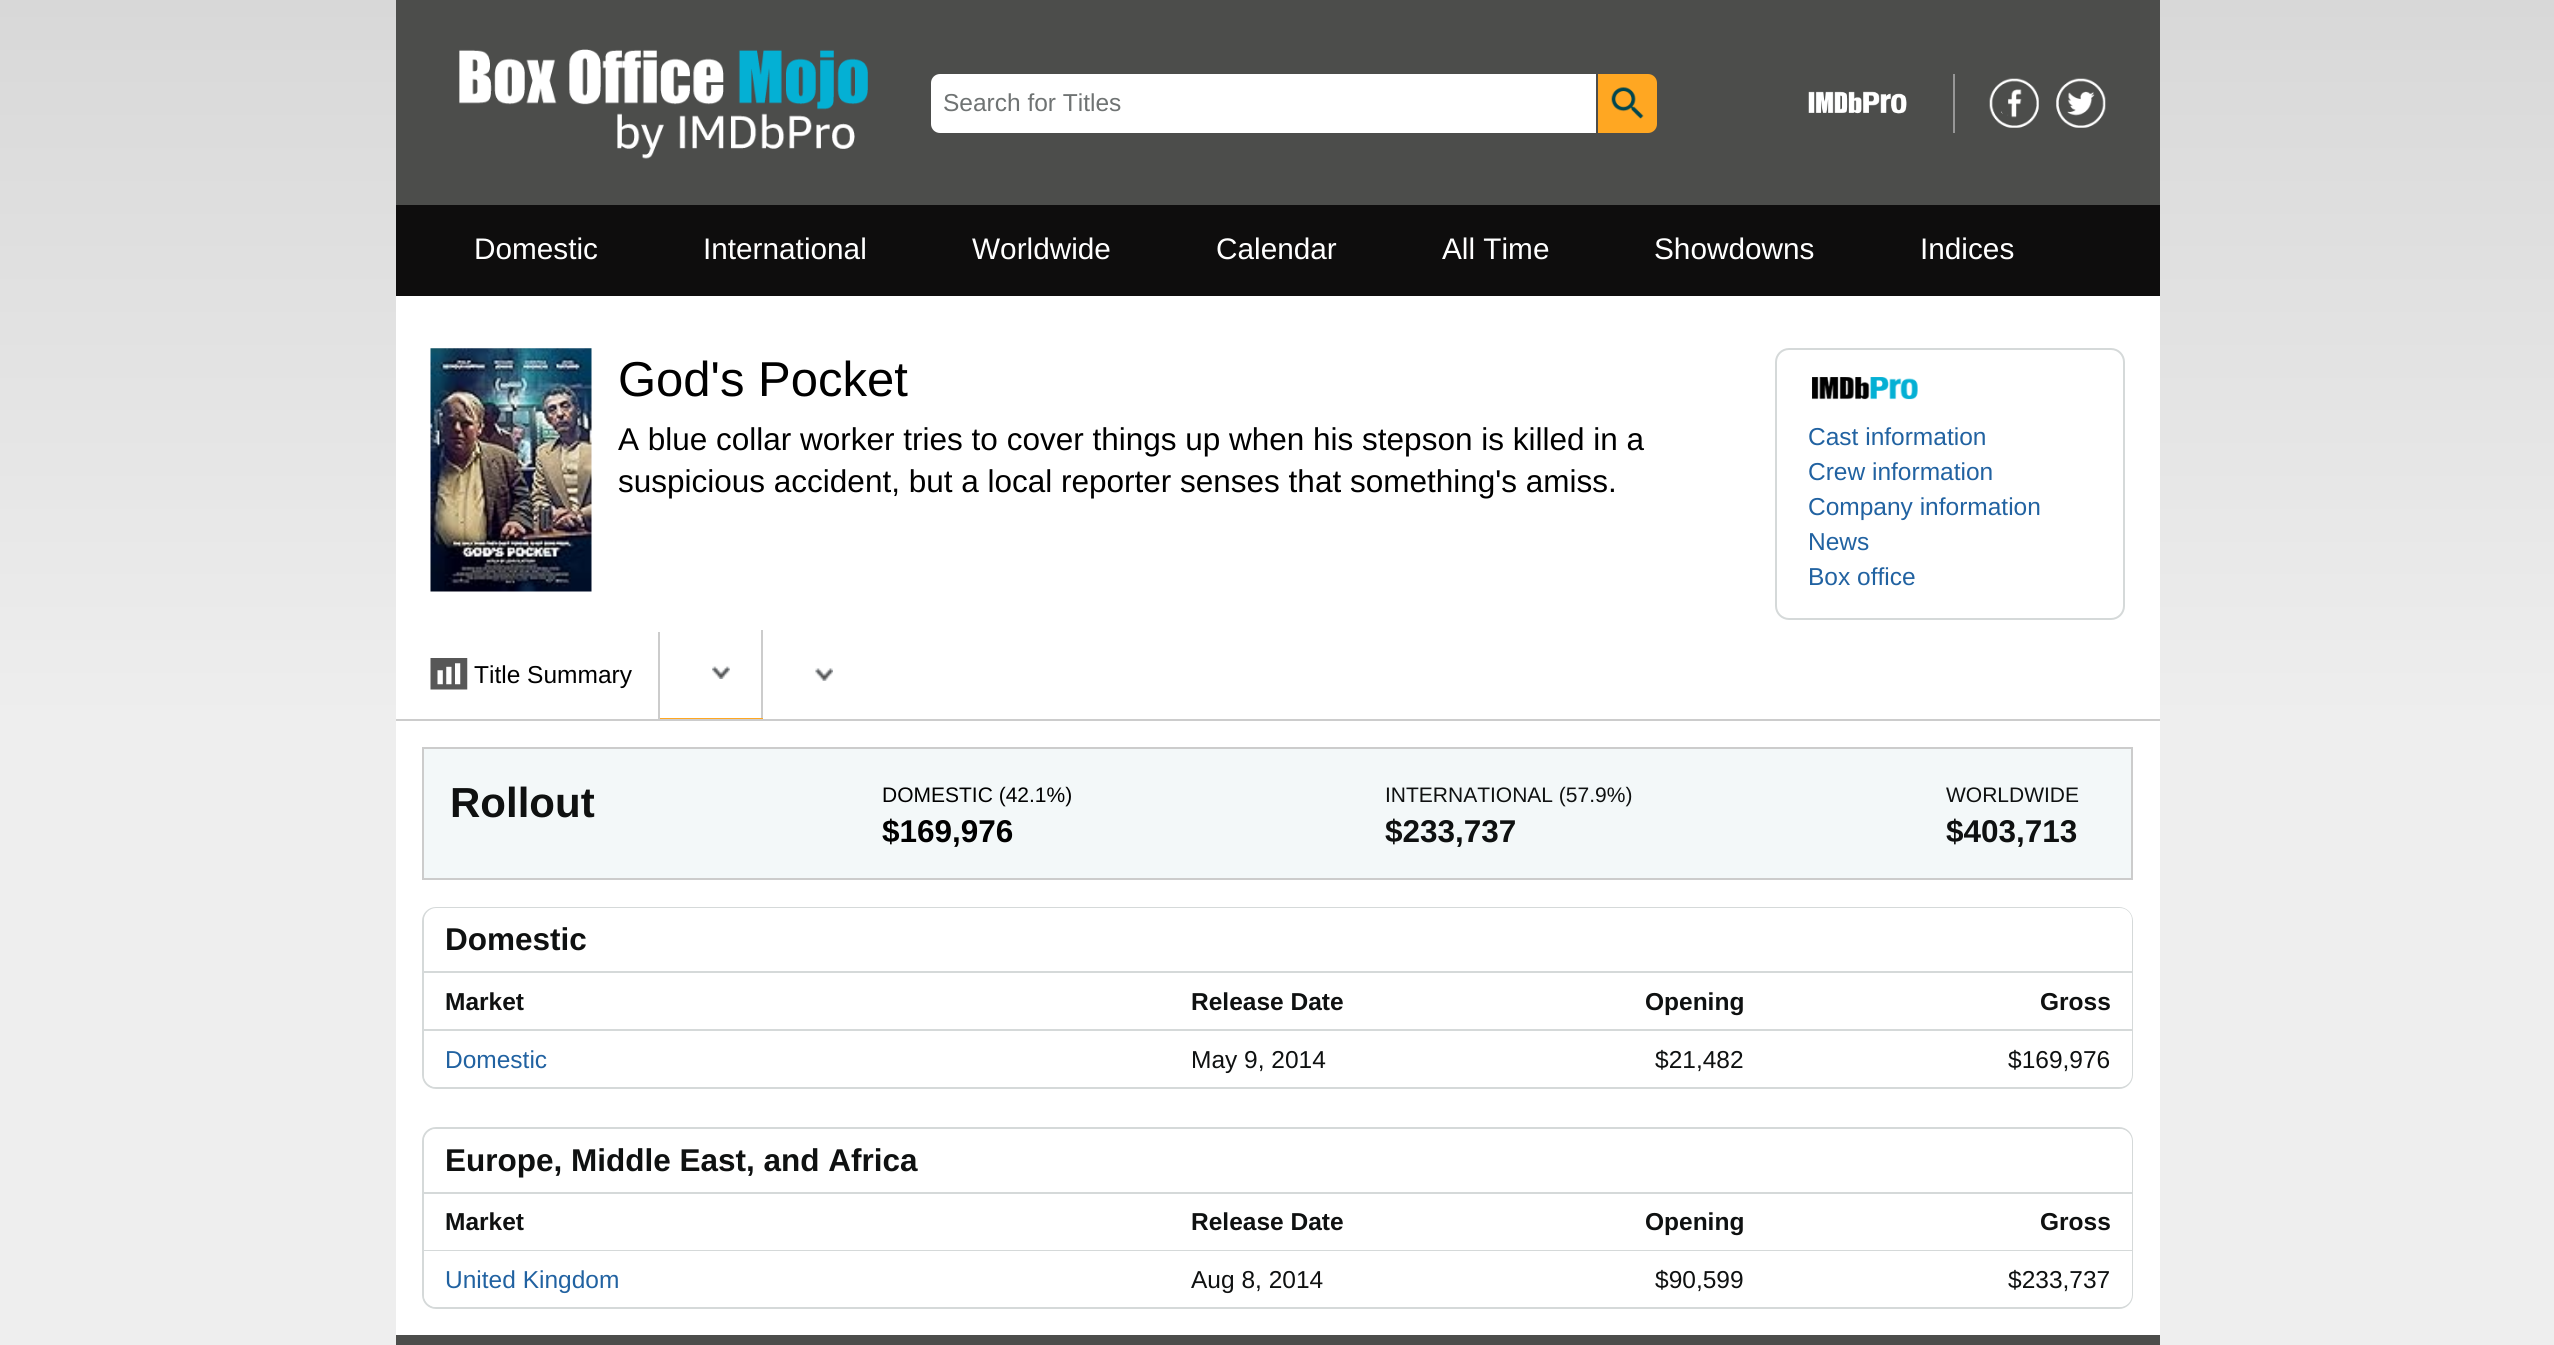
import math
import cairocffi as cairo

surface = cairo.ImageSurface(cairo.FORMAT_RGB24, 2554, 1345)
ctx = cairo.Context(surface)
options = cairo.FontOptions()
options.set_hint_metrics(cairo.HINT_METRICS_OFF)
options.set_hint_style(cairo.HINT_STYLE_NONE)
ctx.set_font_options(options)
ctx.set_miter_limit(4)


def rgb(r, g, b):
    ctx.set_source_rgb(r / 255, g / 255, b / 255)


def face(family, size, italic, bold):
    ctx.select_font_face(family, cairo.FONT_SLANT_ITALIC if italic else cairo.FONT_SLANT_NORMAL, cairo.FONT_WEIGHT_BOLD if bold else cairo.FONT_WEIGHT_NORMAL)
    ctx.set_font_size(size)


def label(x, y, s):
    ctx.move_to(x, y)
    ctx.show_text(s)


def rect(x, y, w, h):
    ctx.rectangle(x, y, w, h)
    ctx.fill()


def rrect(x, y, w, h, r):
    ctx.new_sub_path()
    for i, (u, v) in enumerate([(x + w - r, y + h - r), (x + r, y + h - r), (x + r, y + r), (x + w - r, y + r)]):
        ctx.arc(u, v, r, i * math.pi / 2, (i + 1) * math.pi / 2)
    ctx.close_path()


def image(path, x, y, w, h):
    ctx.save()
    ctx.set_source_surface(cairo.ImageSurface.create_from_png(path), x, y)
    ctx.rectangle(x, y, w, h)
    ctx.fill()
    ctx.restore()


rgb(255, 255, 255)
ctx.paint()
gradient = cairo.LinearGradient(1278, 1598, 1278, 0)
gradient.add_color_stop_rgba(0.55, 0.933, 0.933, 0.933, 1)
gradient.add_color_stop_rgba(1, 0.847, 0.847, 0.847, 1)
ctx.set_source(gradient)
rect(0, 0, 2554, 1345)
rgb(76, 77, 75)
rect(396, 0, 1764, 205)
image('image0.png', 459, 49, 409, 110)
rgb(255, 255, 255)
ctx.new_path()
ctx.move_to(940, 74)
ctx.line_to(1596, 74)
ctx.line_to(1596, 133)
ctx.line_to(940, 133)
ctx.curve_to(935, 133, 931, 129, 931, 124)
ctx.line_to(931, 83)
ctx.curve_to(931, 78, 935, 74, 940, 74)
ctx.close_path()
ctx.fill()
face('Liberation Sans', 24.5, 0, 0)
rgb(111, 115, 115)
label(943, 111, 'Search for Titles')
rgb(255, 167, 34)
ctx.new_path()
ctx.move_to(1598, 74)
ctx.line_to(1648, 74)
ctx.curve_to(1653, 74, 1657, 78, 1657, 83)
ctx.line_to(1657, 124)
ctx.curve_to(1657, 129, 1653, 133, 1648, 133)
ctx.line_to(1598, 133)
ctx.close_path()
ctx.fill()
image('image1.png', 1611, 87, 33, 32)
image('image2.png', 1808, 91, 99, 23)
rgb(151, 151, 151)
rect(1953, 74, 2, 59)
image('image3.png', 1989, 78, 50, 50)
image('image4.png', 2056, 78, 50, 50)
rgb(14, 13, 13)
rect(396, 205, 1764, 91)
face('Liberation Sans', 29.75, 0, 0)
rgb(255, 255, 255)
label(474, 259, 'Domestic')
label(703, 259, 'International')
label(972, 259, 'Worldwide')
label(1216, 259, 'Calendar')
label(1442, 259, 'All Time')
label(1654, 259, 'Showdowns')
label(1920, 259, 'Indices')
rect(396, 296, 1764, 1039)
image('image5.png', 430, 348, 162, 244)
face('Liberation Sans', 49, 0, 0)
rgb(0, 0, 0)
label(618, 396, 'God\'s Pocket')
face('Liberation Sans', 31.5, 0, 0)
label(618, 450, 'A blue collar worker tries to cover things up when his stepson is killed in a')
label(618, 492, 'suspicious accident, but a local reporter senses that something\'s amiss.')
rrect(1776, 349, 348, 270, 13)
rgb(213, 217, 217)
ctx.stroke()
image('image6.png', 1812, 377, 106, 23)
face('Liberation Sans', 24.5, 0, 0)
rgb(33, 98, 161)
label(1808, 445, 'Cast information')
label(1808, 480, 'Crew information')
label(1808, 515, 'Company information')
label(1808, 550, 'News')
label(1808, 585, 'Box office')
rgb(204, 204, 204)
rect(396, 719, 1764, 2)
rect(658, 632, 2, 87)
image('image7.png', 430, 658, 38, 32)
rgb(0, 0, 0)
label(474, 683, 'Title Summary')
rgb(204, 204, 204)
rect(761, 630, 2, 89)
rgb(255, 167, 34)
rect(660, 718, 103, 1)
image('image8.png', 712, 666, 18, 13)
image('image9.png', 815, 668, 18, 13)
rgb(243, 248, 249)
ctx.rectangle(423, 748, 1709, 131)
ctx.fill_preserve()
rgb(204, 204, 204)
ctx.stroke()
face('Liberation Sans', 42, 0, 1)
rgb(15, 17, 17)
label(450, 817, 'Rollout')
face('Liberation Sans', 21, 0, 0)
rgb(0, 0, 0)
label(882, 802, 'DOMESTIC (42.1%)')
face('Liberation Sans', 31.5, 0, 1)
label(882, 842, '$169,976')
face('Liberation Sans', 21, 0, 0)
rgb(15, 17, 17)
label(1385, 802, 'INTERNATIONAL (57.9%)')
face('Liberation Sans', 31.5, 0, 1)
label(1385, 842, '$233,737')
face('Liberation Sans', 21, 0, 0)
label(1946, 802, 'WORLDWIDE')
face('Liberation Sans', 31.5, 0, 1)
label(1946, 842, '$403,713')
rrect(423, 908, 1709, 180, 13)
rgb(213, 217, 217)
ctx.stroke()
rgb(255, 255, 255)
ctx.new_path()
ctx.move_to(436, 908)
ctx.line_to(2120, 908)
ctx.curve_to(2126.5, 908, 2132, 913.5, 2132, 920)
ctx.line_to(2132, 973)
ctx.line_to(424, 973)
ctx.line_to(424, 920)
ctx.curve_to(424, 913.5, 429.5, 908, 436, 908)
ctx.close_path()
ctx.fill()
rgb(213, 217, 217)
rect(424, 971, 1708, 2)
rgb(15, 17, 17)
label(445, 950, 'Domestic')
rgb(213, 217, 217)
rect(424, 1029, 1708, 2)
face('Liberation Sans', 24.5, 0, 1)
rgb(15, 17, 17)
label(445, 1010, 'Market')
label(1191, 1010, 'Release Date')
label(1645, 1010, 'Opening')
rgb(255, 255, 255)
rect(2131, 973, 1, 56)
rgb(15, 17, 17)
label(2040, 1010, 'Gross')
rgb(255, 255, 255)
ctx.new_path()
ctx.move_to(424, 1031)
ctx.line_to(1169, 1031)
ctx.line_to(1169, 1087)
ctx.line_to(436, 1087)
ctx.curve_to(429.5, 1087, 424, 1081.5, 424, 1075)
ctx.close_path()
ctx.fill()
face('Liberation Sans', 24.5, 0, 0)
rgb(33, 98, 161)
label(445, 1068, 'Domestic')
rgb(15, 17, 17)
label(1191, 1068, 'May 9, 2014')
label(1655, 1068, '$21,482')
rgb(255, 255, 255)
ctx.new_path()
ctx.move_to(1766, 1031)
ctx.line_to(2132, 1031)
ctx.line_to(2132, 1075)
ctx.curve_to(2132, 1081.5, 2126.5, 1087, 2120, 1087)
ctx.line_to(1766, 1087)
ctx.close_path()
ctx.fill()
rgb(15, 17, 17)
label(2008, 1068, '$169,976')
rrect(423, 1128, 1709, 180, 13)
rgb(213, 217, 217)
ctx.stroke()
rgb(255, 255, 255)
ctx.new_path()
ctx.move_to(436, 1129)
ctx.line_to(2120, 1129)
ctx.curve_to(2126.5, 1129, 2132, 1134.5, 2132, 1141)
ctx.line_to(2132, 1194)
ctx.line_to(424, 1194)
ctx.line_to(424, 1141)
ctx.curve_to(424, 1134.5, 429.5, 1129, 436, 1129)
ctx.close_path()
ctx.fill()
rgb(213, 217, 217)
rect(424, 1192, 1708, 2)
face('Liberation Sans', 31.5, 0, 1)
rgb(15, 17, 17)
label(445, 1171, 'Europe, Middle East, and Africa')
rgb(213, 217, 217)
rect(424, 1250, 1708, 1)
face('Liberation Sans', 24.5, 0, 1)
rgb(15, 17, 17)
label(445, 1230, 'Market')
label(1191, 1230, 'Release Date')
label(1645, 1230, 'Opening')
rgb(255, 255, 255)
rect(2131, 1194, 1, 56)
rgb(15, 17, 17)
label(2040, 1230, 'Gross')
rgb(255, 255, 255)
ctx.new_path()
ctx.move_to(424, 1251)
ctx.line_to(1169, 1251)
ctx.line_to(1169, 1307)
ctx.line_to(436, 1307)
ctx.curve_to(429.5, 1307, 424, 1301.5, 424, 1295)
ctx.close_path()
ctx.fill()
face('Liberation Sans', 24.5, 0, 0)
rgb(33, 98, 161)
label(445, 1288, 'United Kingdom')
rgb(15, 17, 17)
label(1191, 1288, 'Aug 8, 2014')
label(1655, 1288, '$90,599')
rgb(255, 255, 255)
ctx.new_path()
ctx.move_to(1766, 1251)
ctx.line_to(2132, 1251)
ctx.line_to(2132, 1295)
ctx.curve_to(2132, 1301.5, 2126.5, 1307, 2120, 1307)
ctx.line_to(1766, 1307)
ctx.close_path()
ctx.fill()
rgb(15, 17, 17)
label(2008, 1288, '$233,737')
rgb(76, 77, 75)
rect(396, 1335, 1764, 10)
surface.write_to_png('render.png')
